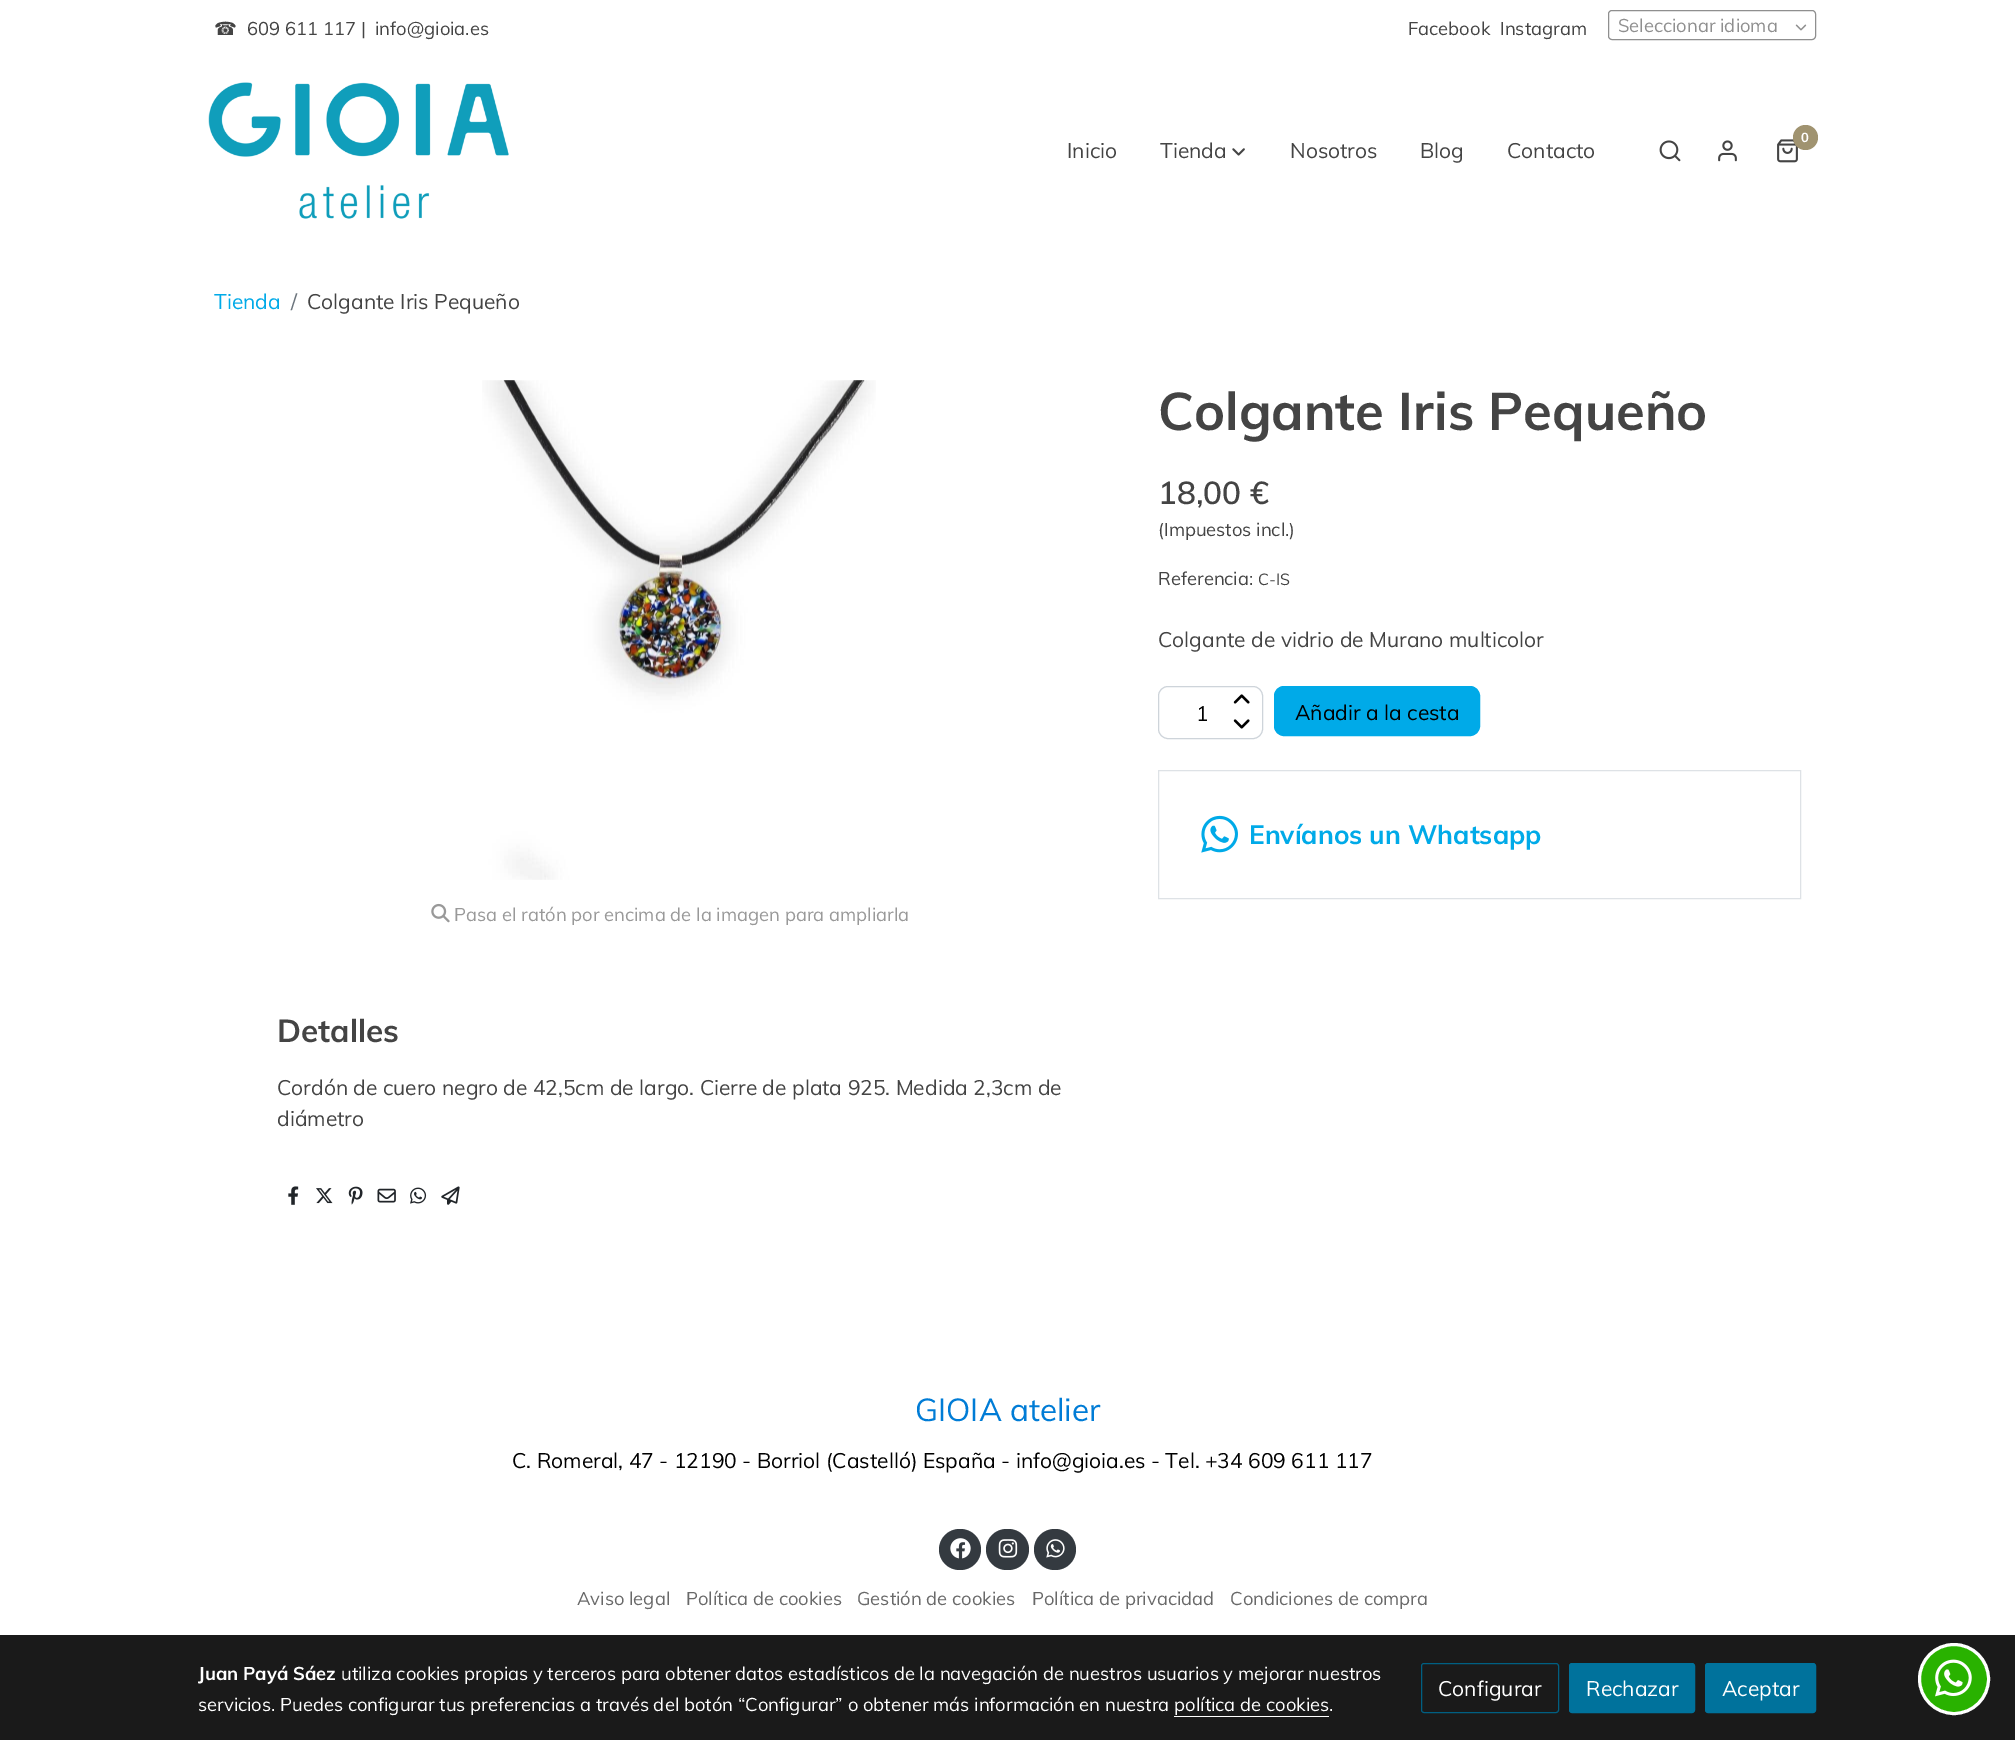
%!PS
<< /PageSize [2015 1740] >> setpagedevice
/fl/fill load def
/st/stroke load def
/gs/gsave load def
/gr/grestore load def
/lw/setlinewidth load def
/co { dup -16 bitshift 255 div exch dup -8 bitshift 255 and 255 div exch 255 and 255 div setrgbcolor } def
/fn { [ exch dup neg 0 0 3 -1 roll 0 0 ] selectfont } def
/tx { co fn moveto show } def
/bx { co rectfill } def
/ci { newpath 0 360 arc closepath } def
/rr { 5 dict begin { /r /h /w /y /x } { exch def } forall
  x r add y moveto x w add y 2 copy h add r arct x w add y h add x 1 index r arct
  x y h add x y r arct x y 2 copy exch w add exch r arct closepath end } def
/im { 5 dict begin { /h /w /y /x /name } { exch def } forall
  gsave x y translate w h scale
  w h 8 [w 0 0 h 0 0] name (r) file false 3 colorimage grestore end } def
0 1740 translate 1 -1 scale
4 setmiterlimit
0 0 2015 1740 16#FFFFFF bx
16#8F8F8F co
1608.5 10.5 207 29 3.5 rr st
(media/1.raw) 1795 24 12 7 im
(media/2.raw) 208 82 301 137 im
(media/3.raw) 1777 139 21 24 im
16#A09370 co
1805.5 137.5 12.5 ci fl
(media/4.raw) 1659 140 22 22 im
(media/5.raw) 1718 140 19 22 im
(media/6.raw) 1232 148 13 8 im
16#CED4DA co
1158.5 686.5 104 52 9.5 rr st
(media/7.raw) 1233 694 17 10 im
(media/8.raw) 1233 719 17 10 im
16#00AAE8 co
1274.5 686.5 205 49 9.5 rr gs fl gr
st
16#DEE2E6 co
1158.5 770.5 642 128 rectstroke
(media/9.raw) 1201 815 37 38 im
(media/10.raw) 482 380 394 500 im
(media/11.raw) 431 903 19 20 im
(media/12.raw) 288 1186 11 19 im
(media/13.raw) 316 1188 17 16 im
(media/14.raw) 348 1186 15 19 im
(media/15.raw) 377 1188 19 15 im
(media/16.raw) 410 1187 17 17 im
(media/17.raw) 441 1186 19 19 im
16#343A40 co
939 1529 42 41 20.5 rr fl
(media/18.raw) 950 1538 21 21 im
986 1529 43 41 20.5 rr fl
(media/19.raw) 998 1539 20 19 im
1034 1529 42 41 20.5 rr fl
(media/20.raw) 1046 1539 19 19 im
0 1635 2015 105 16#1A1A1A bx
1174 1716 155 1 16#FFFFFF bx
16#005F82 co
1421.5 1663.5 137 49 2.5 rr st
16#00729C co
1569.5 1663.5 125 49 2.5 rr gs fl gr
st
1705.5 1663.5 110 49 2.5 rr gs fl gr
st
16#29B200 co
1954 1679 34.5 ci gs fl gr
16#FFFFFF co
3 lw
st
(media/21.raw) 1935 1659 37 38 im
(☎) 214 35 /DejaVuSans-Regular 18.38 16#444444 tx
(609 611 117 |  info@gioia.es) 247 35 /Muli-Regular 18.38 16#444444 tx
(Facebook) 1408 35 /Muli-Regular 18.38 16#444444 tx
(Instagram) 1500 35 /Muli-Regular 18.38 16#444444 tx
(Seleccionar idioma) 1618 32 /Muli-Regular 18.38 16#8F8F8F tx
(0) 1801 142 /Muli-Bold 13 16#FFFFFF tx
(Inicio) 1067 158 /Muli-Regular 21 16#444444 tx
(Tienda) 1160 158 /Muli-Regular 21 16#444444 tx
(Nosotros) 1290 158 /Muli-Regular 21 16#444444 tx
(Blog) 1420 158 /Muli-Regular 21 16#444444 tx
(Contacto) 1507 158 /Muli-Regular 21 16#444444 tx
(Tienda) 214 309 /Muli-Regular 21 16#00AAE8 tx
(/) 291 309 /Muli-Regular 21 16#6C757D tx
(Colgante Iris Pequeño) 307 309 /Muli-Regular 21 16#444444 tx
(Colgante Iris Pequeño) 1158 430 /Muli-Bold 52.5 16#444444 tx
(18,00 €) 1158 504 /Muli-SemiBold 31.5 16#444444 tx
(\(Impuestos incl.\)) 1158 536 /Muli-Regular 18.38 16#444444 tx
(Referencia:) 1158 585 /Muli-Regular 18.38 16#444444 tx
(C-IS) 1258 585 /Muli-Regular 16 16#444444 tx
(Colgante de vidrio de Murano multicolor) 1158 647 /Muli-Regular 21 16#444444 tx
(1) 1196 721 /Muli-Regular 21 16#000000 tx
(Añadir a la cesta) 1295 720 /Muli-Regular 21 16#000000 tx
(Envíanos un Whatsapp) 1249 844 /Muli-Bold 26.25 16#00AAE8 tx
(Pasa el ratón por encima de la imagen para ampliarla) 454 921 /Muli-Regular 18.38 16#999999 tx
(Detalles) 277 1042 /Muli-Bold 31.5 16#444444 tx
(Cordón de cuero negro de 42,5cm de largo. Cierre de plata 925. Medida 2,3cm de) 277 1095 /Muli-Regular 21 16#444444 tx
(diámetro) 277 1126 /Muli-Regular 21 16#444444 tx
(GIOIA atelier) 915 1421 /Muli-Regular 31.5 16#007CD6 tx
(C. Romeral, 47 - 12190 - Borriol \(Castelló\) España - info@gioia.es - Tel. +34 609 611 117) 512 1468 /Muli-Regular 21 16#000000 tx
(Aviso legal) 577 1605 /Muli-Regular 18.38 16#696969 tx
(Política de cookies) 686 1605 /Muli-Regular 18.38 16#696969 tx
(Gestión de cookies) 857 1605 /Muli-Regular 18.38 16#696969 tx
(Política de privacidad) 1032 1605 /Muli-Regular 18.38 16#696969 tx
(Condiciones de compra) 1230 1605 /Muli-Regular 18.38 16#696969 tx
(Juan Payá Sáez) 198 1680 /Muli-Bold 18.38 16#FFFFFF tx
(utiliza cookies propias y terceros para obtener datos estadísticos de la navegación de nuestros usuarios y mejorar nuestros) 341 1680 /Muli-Regular 18.38 16#FFFFFF tx
(servicios. Puedes configurar tus preferencias a través del botón “Configurar” o obtener más información en nuestra política de cookies.) 198 1711 /Muli-Regular 18.38 16#FFFFFF tx
(Configurar) 1438 1696 /Muli-Regular 21 16#FFFFFF tx
(Rechazar) 1586 1696 /Muli-Regular 21 16#FFFFFF tx
(Aceptar) 1722 1696 /Muli-Regular 21 16#FFFFFF tx
showpage
